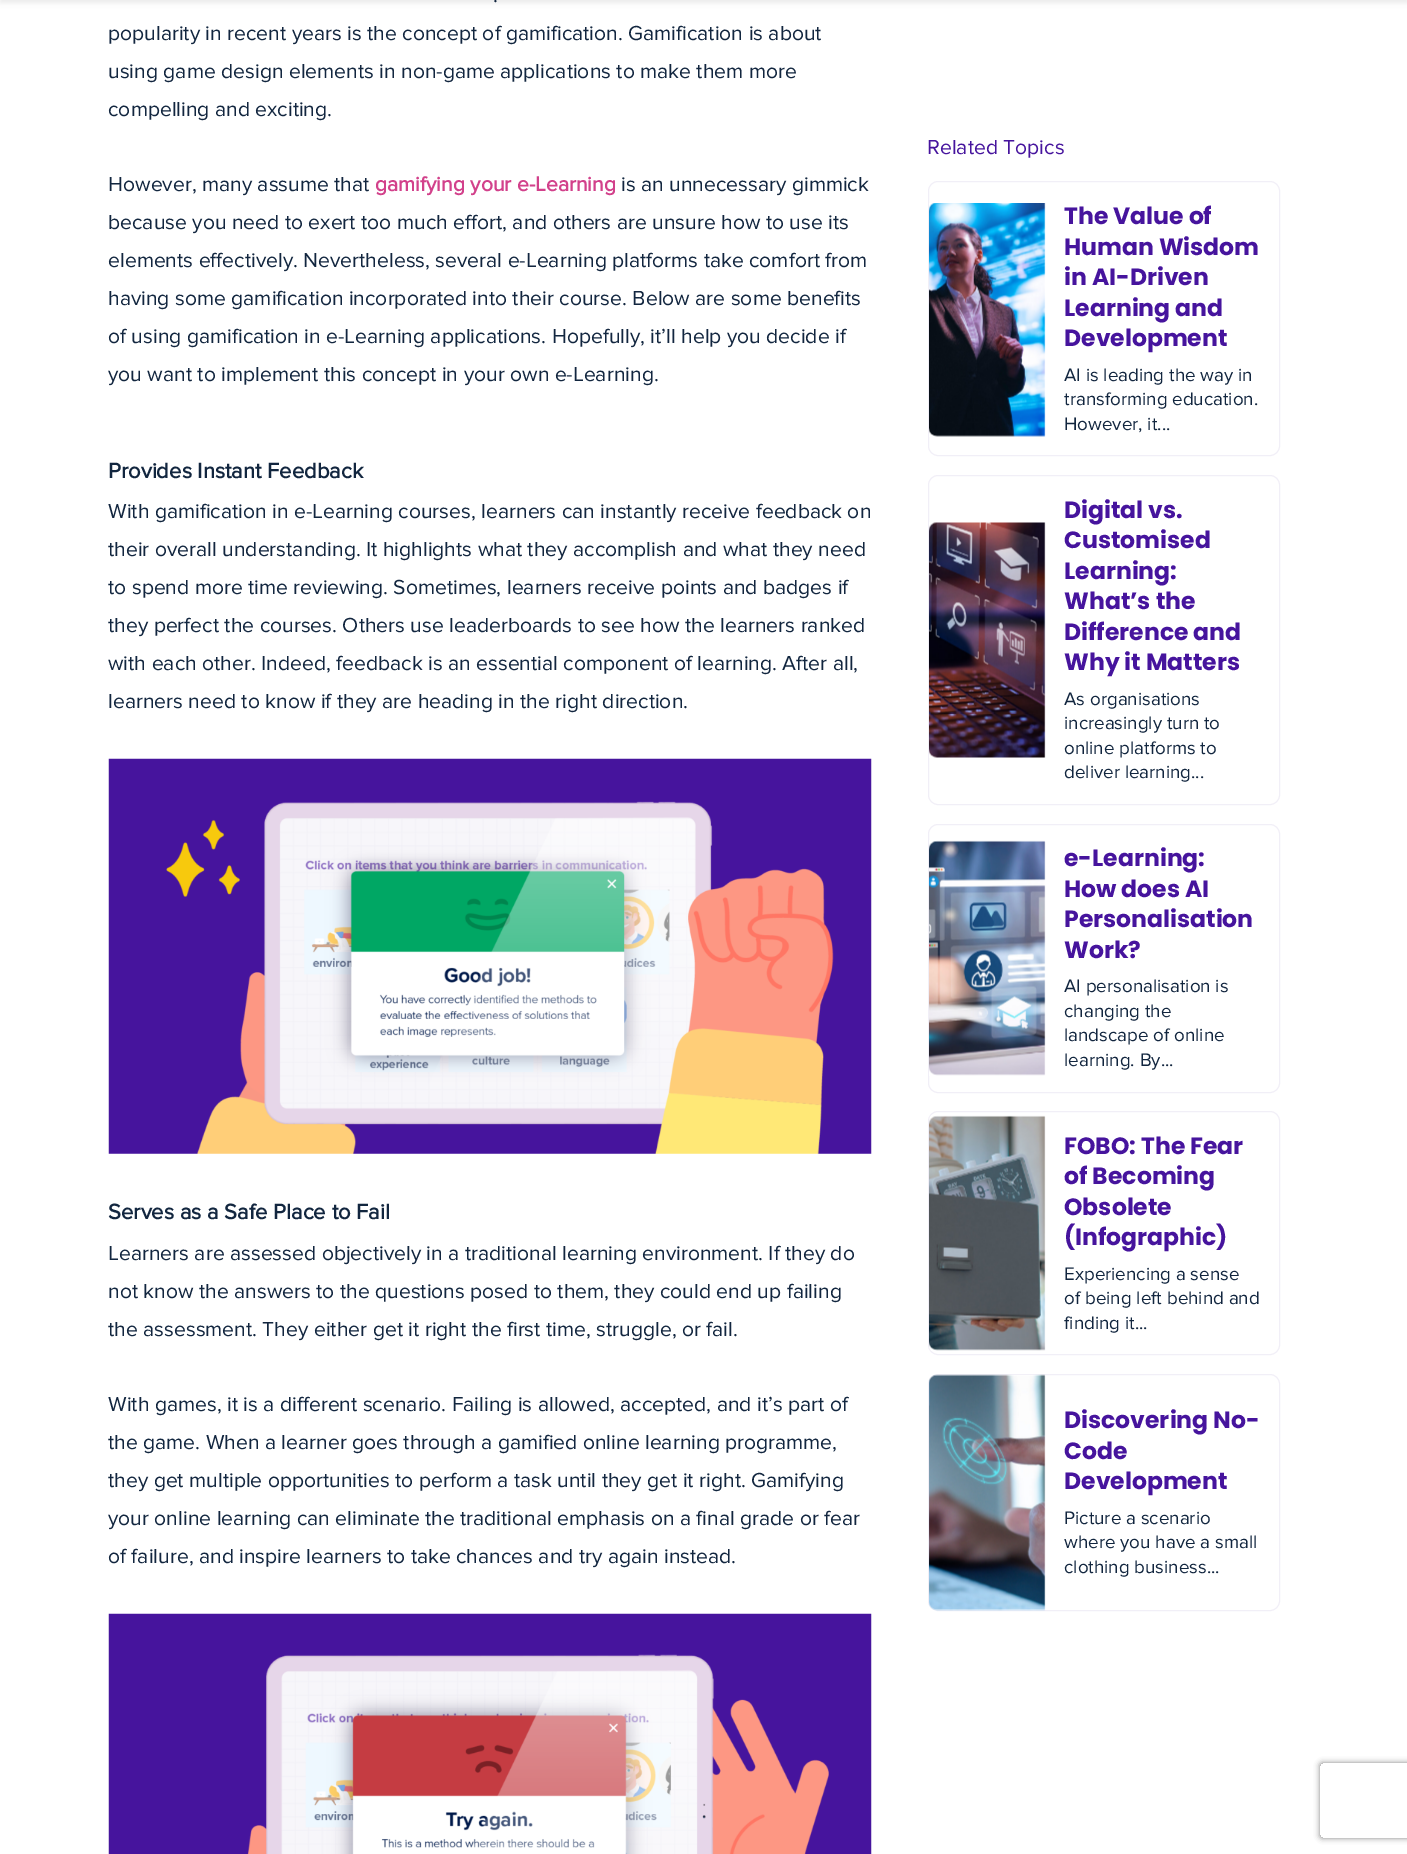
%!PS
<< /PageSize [1407 1854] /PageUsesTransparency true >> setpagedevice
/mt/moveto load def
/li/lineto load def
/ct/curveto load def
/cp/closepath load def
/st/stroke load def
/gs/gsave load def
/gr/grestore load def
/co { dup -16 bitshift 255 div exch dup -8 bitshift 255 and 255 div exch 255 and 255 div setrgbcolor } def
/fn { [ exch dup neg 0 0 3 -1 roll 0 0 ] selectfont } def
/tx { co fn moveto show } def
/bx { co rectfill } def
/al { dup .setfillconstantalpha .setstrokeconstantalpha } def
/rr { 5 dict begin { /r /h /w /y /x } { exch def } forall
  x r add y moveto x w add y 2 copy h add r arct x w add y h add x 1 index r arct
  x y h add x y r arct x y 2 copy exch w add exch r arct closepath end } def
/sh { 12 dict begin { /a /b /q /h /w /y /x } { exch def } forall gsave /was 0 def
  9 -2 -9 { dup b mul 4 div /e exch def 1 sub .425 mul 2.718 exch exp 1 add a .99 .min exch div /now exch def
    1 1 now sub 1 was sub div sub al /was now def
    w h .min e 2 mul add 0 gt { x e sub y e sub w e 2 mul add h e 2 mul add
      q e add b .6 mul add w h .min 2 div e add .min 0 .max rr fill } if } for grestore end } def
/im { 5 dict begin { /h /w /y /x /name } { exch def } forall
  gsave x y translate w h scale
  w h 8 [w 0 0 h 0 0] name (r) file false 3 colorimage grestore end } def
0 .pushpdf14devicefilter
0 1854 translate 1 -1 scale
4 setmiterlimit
0 0 1407 1854 16#FFFFFF bx
16#000000 co
0 -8 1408 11 0 2.5 .07 sh
(media/1.raw) 108 758 764 396 im
(media/2.raw) 108 1613 764 241 im
16#F1EFF7 co
928.5 181.5 351 274 9.5 rr st
(media/3.raw) 929 203 117 234 im
928.5 475.5 351 329 9.5 rr st
(media/4.raw) 929 522 117 236 im
928.5 824.5 351 268 9.5 rr st
(media/5.raw) 929 840 117 236 im
928.5 1111.5 351 243 9.5 rr st
(media/6.raw) 929 1115 117 236 im
928.5 1374.5 351 236 9.5 rr st
(media/7.raw) 929 1374 117 237 im
gs
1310 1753 mt 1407 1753 li 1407 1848 li 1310 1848 li cp 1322.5 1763 mt 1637.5 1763 li 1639 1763 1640 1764 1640 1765.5 ct 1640 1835.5 li 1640 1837 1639 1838 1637.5 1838 ct 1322.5 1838 li 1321 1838 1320 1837 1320 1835.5 ct 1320 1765.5 li 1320 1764 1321 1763 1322.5 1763 ct cp eoclip newpath
16#808080 co
1320 1763 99 75 2.5 3 1 sh
gr
(.) 493 2 /ProximaNova-Regular 21.1 16#12263F tx
(popularity in recent years is the concept of gamification. Gamification is about) 108 40 /ProximaNova-Regular 21.1 16#12263F tx
(using game design elements in non-game applications to make them more) 108 78 /ProximaNova-Regular 21.1 16#12263F tx
(compelling and exciting.) 108 116 /ProximaNova-Regular 21.1 16#12263F tx
(However, many assume that) 108 191 /ProximaNova-Regular 21.1 16#12263F tx
(gamifying your e-Learning) 375 191 /ProximaNova-Bold 21.1 16#D2418B tx
(is an unnecessary gimmick) 621 191 /ProximaNova-Regular 21.1 16#12263F tx
(because you need to exert too much effort, and others are unsure how to use its) 108 229 /ProximaNova-Regular 21.1 16#12263F tx
(elements effectively. Nevertheless, several e-Learning platforms take comfort from) 108 267 /ProximaNova-Regular 21.1 16#12263F tx
(having some gamification incorporated into their course. Below are some benefits) 108 305 /ProximaNova-Regular 21.1 16#12263F tx
(of using gamification in e-Learning applications. Hopefully, it’ll help you decide if) 108 343 /ProximaNova-Regular 21.1 16#12263F tx
(you want to implement this concept in your own e-Learning.) 108 381 /ProximaNova-Regular 21.1 16#12263F tx
(Provides Instant Feedback) 108 478 /ProximaNova-Bold 22 16#12263F tx
(With gamification in e-Learning courses, learners can instantly receive feedback on) 108 518 /ProximaNova-Regular 21.1 16#12263F tx
(their overall understanding. It highlights what they accomplish and what they need) 108 556 /ProximaNova-Regular 21.1 16#12263F tx
(to spend more time reviewing. Sometimes, learners receive points and badges if) 108 594 /ProximaNova-Regular 21.1 16#12263F tx
(they perfect the courses. Others use leaderboards to see how the learners ranked) 108 632 /ProximaNova-Regular 21.1 16#12263F tx
(with each other. Indeed, feedback is an essential component of learning. After all,) 108 670 /ProximaNova-Regular 21.1 16#12263F tx
(learners need to know if they are heading in the right direction.) 108 708 /ProximaNova-Regular 21.1 16#12263F tx
(Serves as a Safe Place to Fail) 108 1219 /ProximaNova-Bold 22 16#12263F tx
(Learners are assessed objectively in a traditional learning environment. If they do) 108 1260 /ProximaNova-Regular 21.1 16#12263F tx
(not know the answers to the questions posed to them, they could end up failing) 108 1298 /ProximaNova-Regular 21.1 16#12263F tx
(the assessment. They either get it right the first time, struggle, or fail.) 108 1336 /ProximaNova-Regular 21.1 16#12263F tx
(With games, it is a different scenario. Failing is allowed, accepted, and it’s part of) 108 1411 /ProximaNova-Regular 21.1 16#12263F tx
(the game. When a learner goes through a gamified online learning programme,) 108 1449 /ProximaNova-Regular 21.1 16#12263F tx
(they get multiple opportunities to perform a task until they get it right. Gamifying) 108 1487 /ProximaNova-Regular 21.1 16#12263F tx
(your online learning can eliminate the traditional emphasis on a final grade or fear) 108 1525 /ProximaNova-Regular 21.1 16#12263F tx
(of failure, and inspire learners to take chances and try again instead.) 108 1563 /ProximaNova-Regular 21.1 16#12263F tx
(Related Topics) 927 154 /ProximaNova-Regular 21.1 16#46149D tx
(The Value of) 1064 224 /Poppins-Bold 23.5 16#46149D tx
(Human Wisdom) 1064 255 /Poppins-Bold 23.5 16#46149D tx
(in AI-Driven) 1064 285 /Poppins-Bold 23.5 16#46149D tx
(Learning and) 1064 316 /Poppins-Bold 23.5 16#46149D tx
(Development) 1064 346 /Poppins-Bold 23.5 16#46149D tx
(AI is leading the way in) 1064 381 /ProximaNova-Regular 18.75 16#12263F tx
(transforming education.) 1064 405 /ProximaNova-Regular 18.75 16#12263F tx
(However, it...) 1064 430 /ProximaNova-Regular 18.75 16#12263F tx
(Digital vs.) 1064 518 /Poppins-Bold 23.5 16#46149D tx
(Customised) 1064 548 /Poppins-Bold 23.5 16#46149D tx
(Learning:) 1064 579 /Poppins-Bold 23.5 16#46149D tx
(What’s the) 1064 609 /Poppins-Bold 23.5 16#46149D tx
(Difference and) 1064 640 /Poppins-Bold 23.5 16#46149D tx
(Why it Matters) 1064 670 /Poppins-Bold 23.5 16#46149D tx
(As organisations) 1064 705 /ProximaNova-Regular 18.75 16#12263F tx
(increasingly turn to) 1064 729 /ProximaNova-Regular 18.75 16#12263F tx
(online platforms to) 1064 754 /ProximaNova-Regular 18.75 16#12263F tx
(deliver learning...) 1064 778 /ProximaNova-Regular 18.75 16#12263F tx
(e-Learning:) 1064 866 /Poppins-Bold 23.5 16#46149D tx
(How does AI) 1064 897 /Poppins-Bold 23.5 16#46149D tx
(Personalisation) 1064 927 /Poppins-Bold 23.5 16#46149D tx
(Work?) 1064 958 /Poppins-Bold 23.5 16#46149D tx
(AI personalisation is) 1064 992 /ProximaNova-Regular 18.75 16#12263F tx
(changing the) 1064 1017 /ProximaNova-Regular 18.75 16#12263F tx
(landscape of online) 1064 1041 /ProximaNova-Regular 18.75 16#12263F tx
(learning. By...) 1064 1066 /ProximaNova-Regular 18.75 16#12263F tx
(FOBO: The Fear) 1064 1154 /Poppins-Bold 23.5 16#46149D tx
(of Becoming) 1064 1184 /Poppins-Bold 23.5 16#46149D tx
(Obsolete) 1064 1215 /Poppins-Bold 23.5 16#46149D tx
(\(Infographic\)) 1064 1245 /Poppins-Bold 23.5 16#46149D tx
(Experiencing a sense) 1064 1280 /ProximaNova-Regular 18.75 16#12263F tx
(of being left behind and) 1064 1304 /ProximaNova-Regular 18.75 16#12263F tx
(finding it...) 1064 1329 /ProximaNova-Regular 18.75 16#12263F tx
(Discovering No-) 1064 1428 /Poppins-Bold 23.5 16#46149D tx
(Code) 1064 1459 /Poppins-Bold 23.5 16#46149D tx
(Development) 1064 1489 /Poppins-Bold 23.5 16#46149D tx
(Picture a scenario) 1064 1524 /ProximaNova-Regular 18.75 16#12263F tx
(where you have a small) 1064 1548 /ProximaNova-Regular 18.75 16#12263F tx
(clothing business...) 1064 1573 /ProximaNova-Regular 18.75 16#12263F tx
.poppdf14devicefilter showpage
